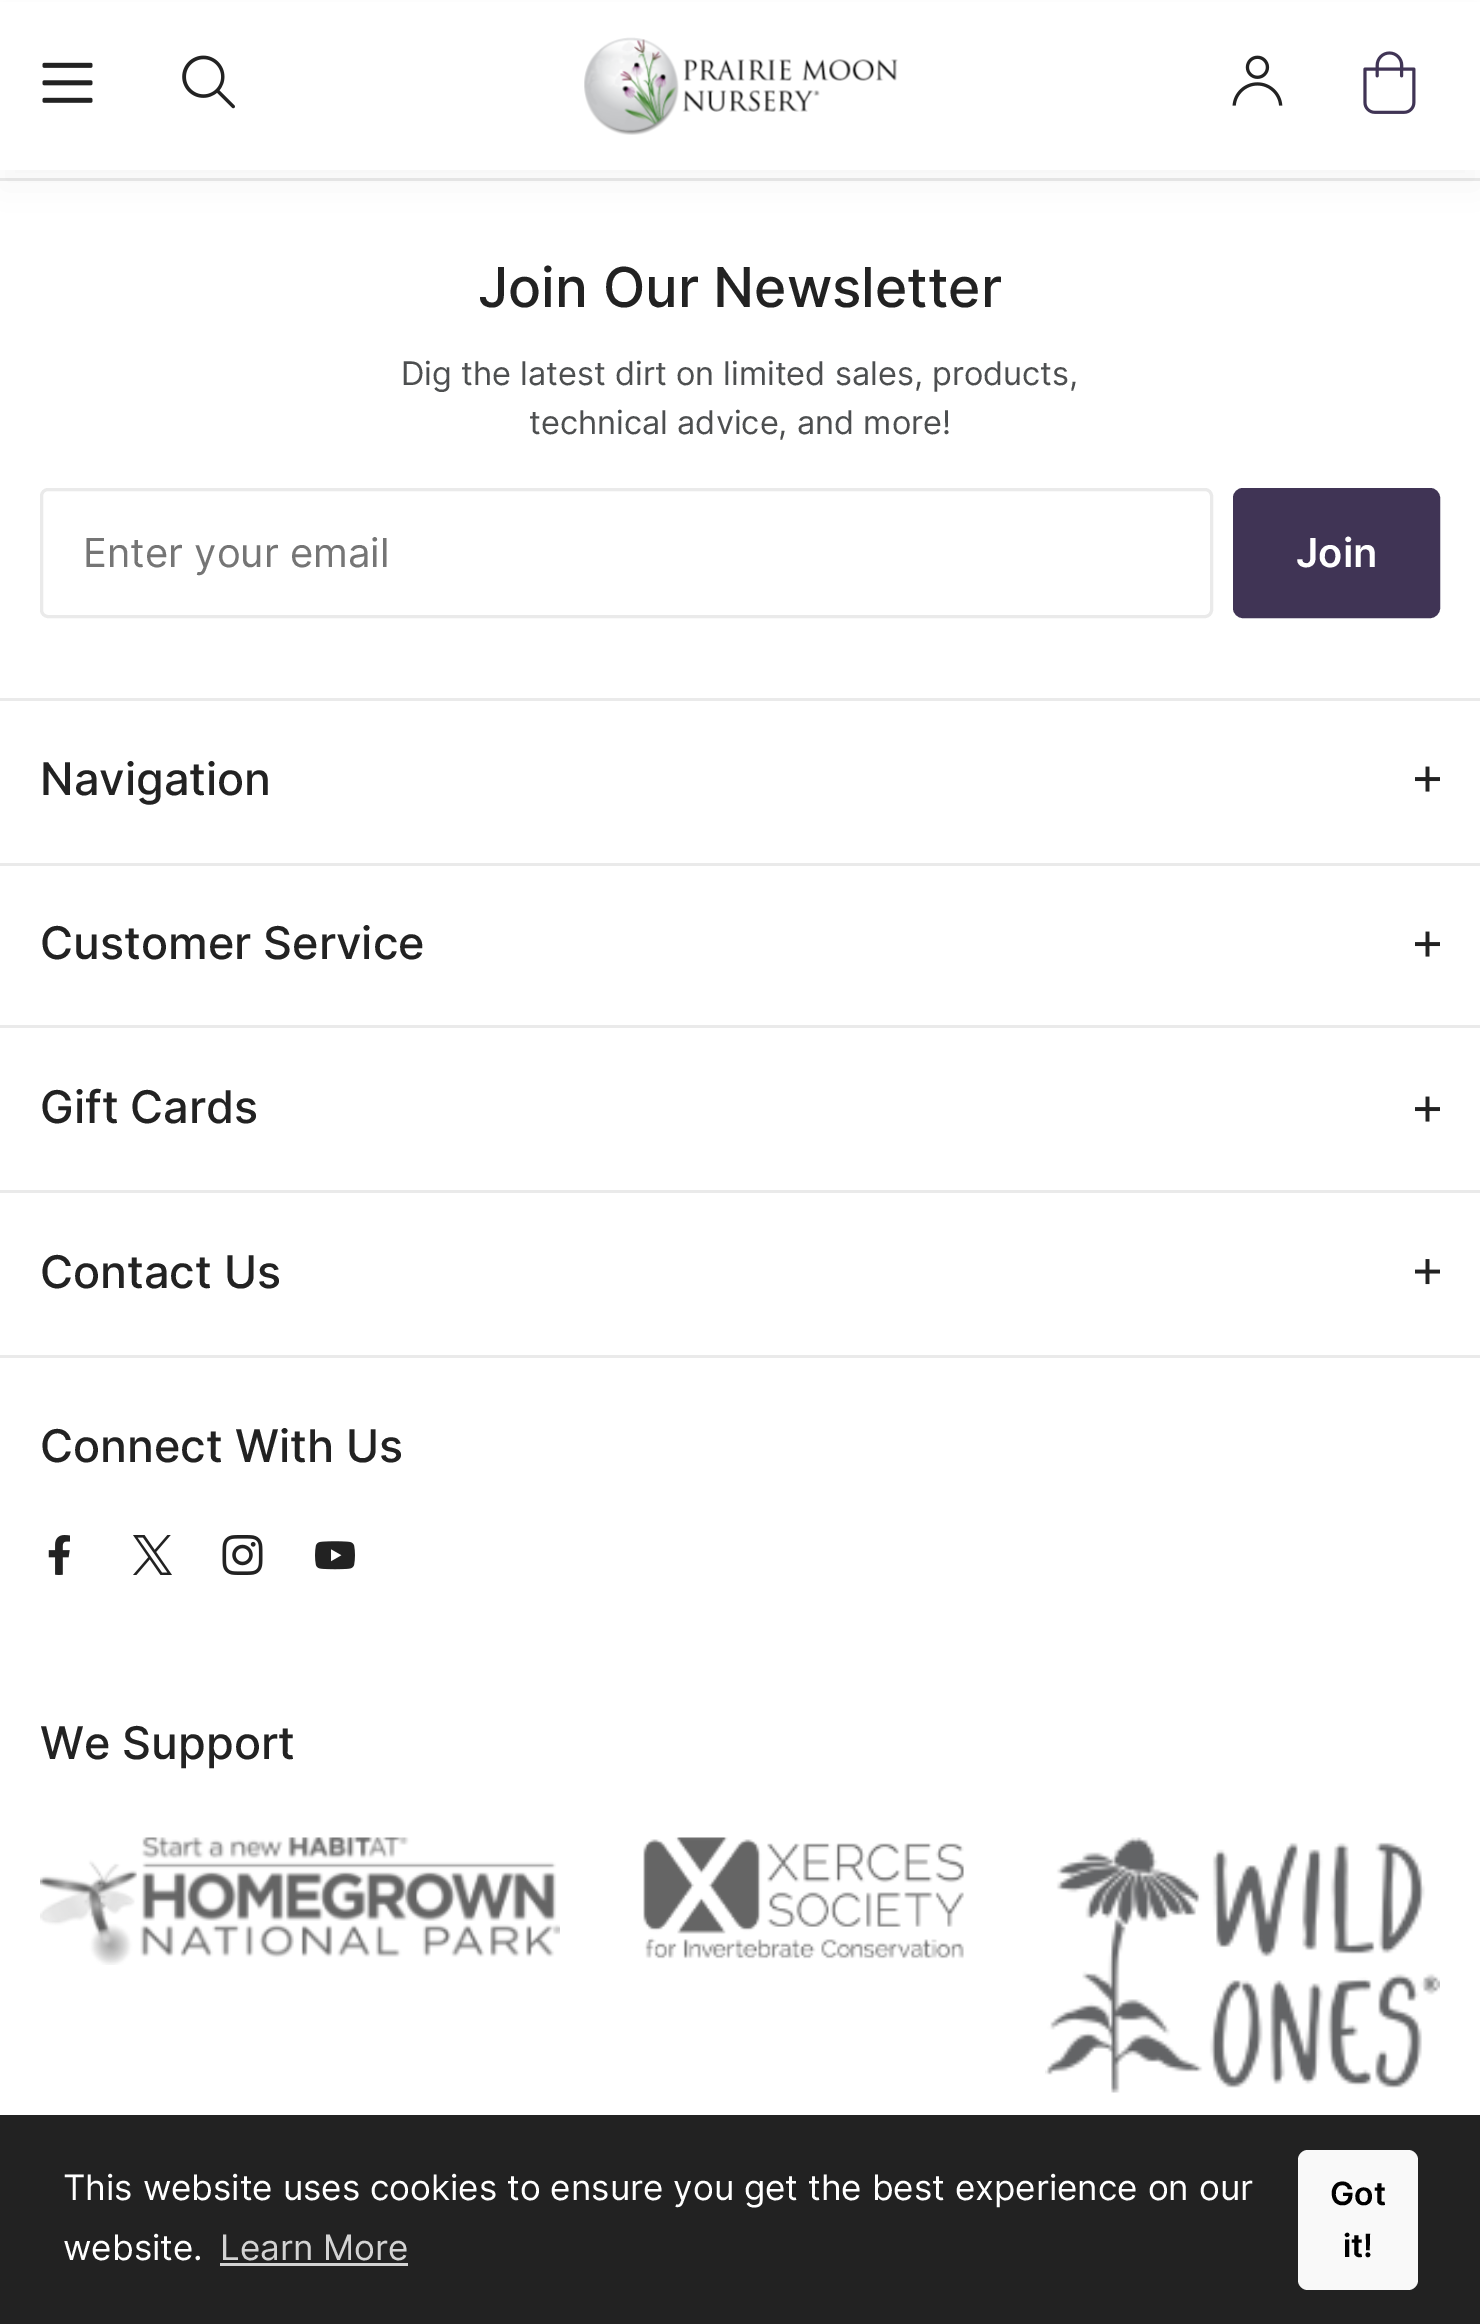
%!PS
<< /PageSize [1480 2324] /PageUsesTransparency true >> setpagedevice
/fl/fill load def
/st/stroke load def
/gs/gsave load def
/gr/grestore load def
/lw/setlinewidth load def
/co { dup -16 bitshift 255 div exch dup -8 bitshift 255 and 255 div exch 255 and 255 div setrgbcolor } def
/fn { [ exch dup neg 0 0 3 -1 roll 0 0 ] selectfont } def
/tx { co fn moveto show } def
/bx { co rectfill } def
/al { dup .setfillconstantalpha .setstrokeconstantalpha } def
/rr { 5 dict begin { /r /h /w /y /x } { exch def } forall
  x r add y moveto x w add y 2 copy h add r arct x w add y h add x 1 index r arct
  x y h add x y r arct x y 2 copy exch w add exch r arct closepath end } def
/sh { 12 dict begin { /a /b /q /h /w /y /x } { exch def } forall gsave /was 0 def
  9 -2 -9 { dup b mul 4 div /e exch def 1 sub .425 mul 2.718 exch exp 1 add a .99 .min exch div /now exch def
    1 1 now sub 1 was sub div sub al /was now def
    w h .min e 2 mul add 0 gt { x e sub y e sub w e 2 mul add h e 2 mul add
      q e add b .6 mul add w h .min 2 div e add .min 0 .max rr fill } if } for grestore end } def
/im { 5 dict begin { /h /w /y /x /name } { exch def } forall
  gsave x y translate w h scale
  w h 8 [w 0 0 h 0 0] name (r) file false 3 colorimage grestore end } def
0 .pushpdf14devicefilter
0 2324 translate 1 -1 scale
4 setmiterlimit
0 0 1480 2324 16#FFFFFF bx
0 178 1480 3 16#EAEAEA bx
16#000000 co
0 15 1480 173 0 20 .04 sh
0 2 1480 168 16#FFFFFF bx
(media/1.raw) 42 62 51 41 im
(media/2.raw) 182 55 53 54 im
(media/3.raw) 584 37 314 98 im
(media/4.raw) 1232 55 51 51 im
(media/5.raw) 1363 51 53 63 im
0 698 1480 3 16#EAEAEA bx
3 lw
41.5 489.5 1170 127 6.5 rr st
16#403455 co
1234.5 489.5 204 127 8.5 rr gs fl gr
st
0 863 1480 3 16#EAEAEA bx
(media/6.raw) 1415 766 25 26 im
0 1025 1480 3 16#EAEAEA bx
(media/6.raw) 1415 931 25 26 im
0 1190 1480 3 16#EAEAEA bx
(media/6.raw) 1415 1096 25 26 im
0 1355 1480 3 16#EAEAEA bx
(media/7.raw) 1415 1259 25 26 im
(media/8.raw) 48 1535 22 40 im
(media/9.raw) 133 1535 39 40 im
(media/10.raw) 222 1535 41 40 im
(media/11.raw) 315 1541 40 29 im
(media/12.raw) 40 1837 520 128 im
(media/13.raw) 643 1837 321 122 im
(media/14.raw) 1045 1837 395 256 im
0 2115 1480 209 16#222222 bx
220 2263 188 3 16#D3D3D3 bx
16#F9F9F9 co
1298 2150 120 140 10 rr fl
(Join Our Newsletter) 478 307 /Inter-Medium 55 16#222222 tx
(Dig the latest dirt on limited sales, products,) 401 385 /Inter-Regular 32.5 16#4D4F50 tx
(technical advice, and more!) 529 434 /Inter-Regular 32.5 16#4D4F50 tx
(Enter your email) 83 567 /Inter-Regular 40 16#757575 tx
(Join) 1296 567 /Inter-SemiBold 40 16#FFFFFF tx
(Navigation) 40 795 /Inter-Medium 45 16#222222 tx
(Customer Service) 40 959 /Inter-Medium 45 16#222222 tx
(Gift Cards) 40 1123 /Inter-Medium 45 16#222222 tx
(Contact Us) 40 1288 /Inter-Medium 45 16#222222 tx
(Connect With Us) 40 1462 /Inter-Medium 45 16#222222 tx
(We Support) 40 1759 /Inter-Medium 45 16#222222 tx
(This website uses cookies to ensure you get the best experience on our) 63 2200 /Inter-Regular 35 16#FFFFFF tx
(website.) 63 2260 /Inter-Regular 35 16#FFFFFF tx
(Learn More) 220 2260 /Inter-Regular 35 16#D3D3D3 tx
(Got) 1330 2205 /Inter-SemiBold 32 16#000000 tx
(it!) 1343 2257 /Inter-SemiBold 32 16#000000 tx
.poppdf14devicefilter showpage
